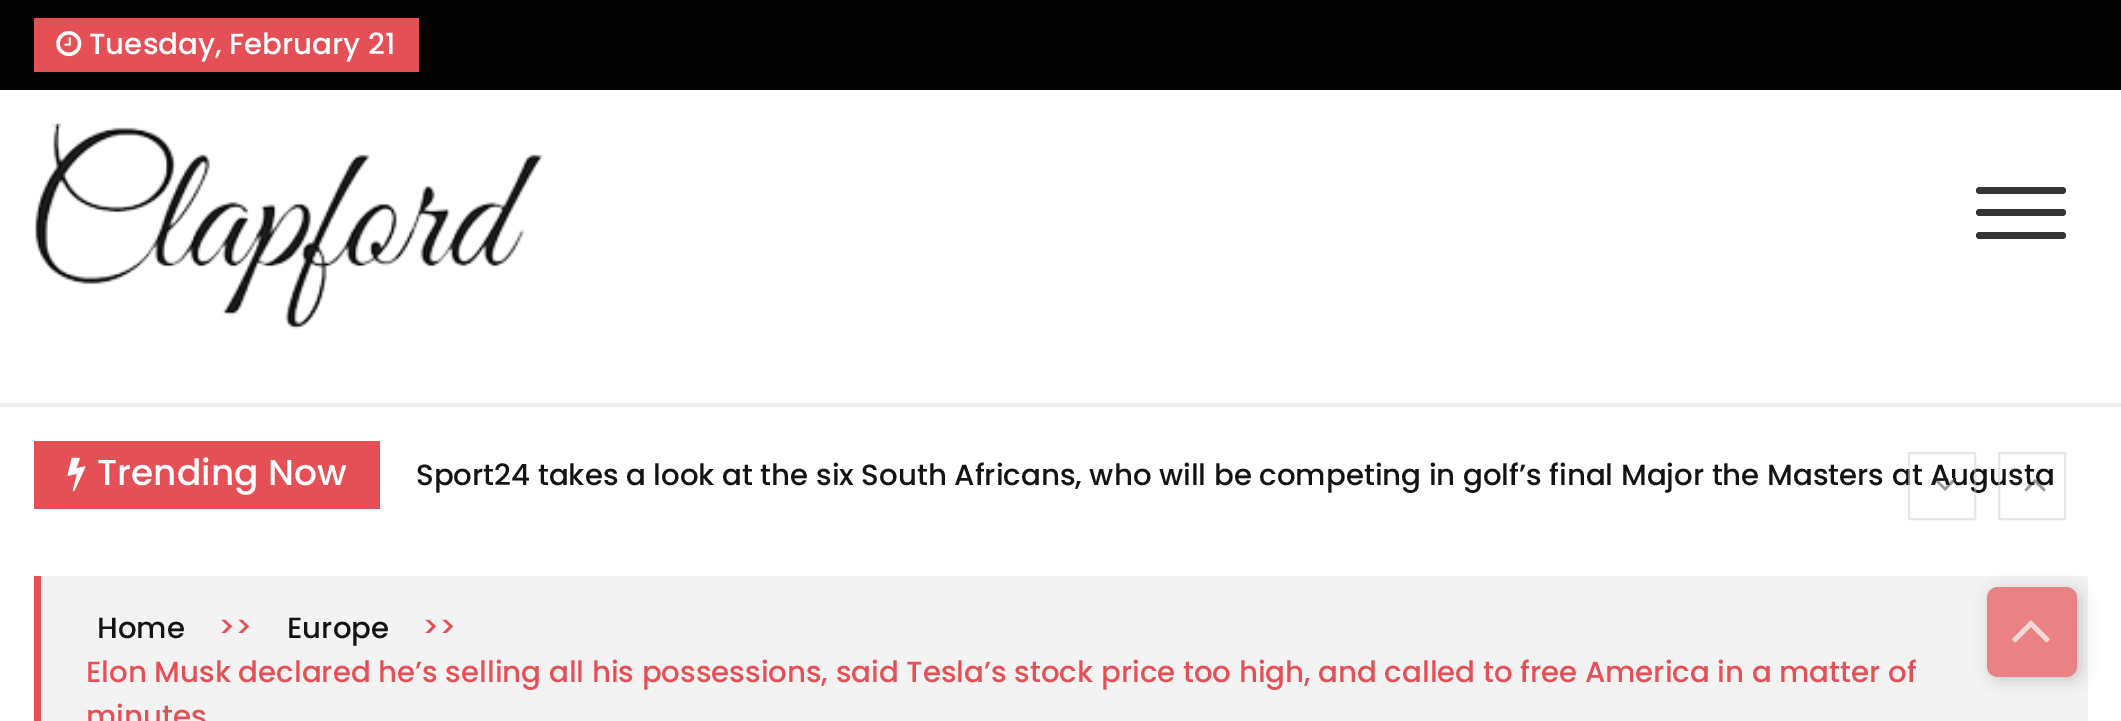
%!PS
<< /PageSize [2121 721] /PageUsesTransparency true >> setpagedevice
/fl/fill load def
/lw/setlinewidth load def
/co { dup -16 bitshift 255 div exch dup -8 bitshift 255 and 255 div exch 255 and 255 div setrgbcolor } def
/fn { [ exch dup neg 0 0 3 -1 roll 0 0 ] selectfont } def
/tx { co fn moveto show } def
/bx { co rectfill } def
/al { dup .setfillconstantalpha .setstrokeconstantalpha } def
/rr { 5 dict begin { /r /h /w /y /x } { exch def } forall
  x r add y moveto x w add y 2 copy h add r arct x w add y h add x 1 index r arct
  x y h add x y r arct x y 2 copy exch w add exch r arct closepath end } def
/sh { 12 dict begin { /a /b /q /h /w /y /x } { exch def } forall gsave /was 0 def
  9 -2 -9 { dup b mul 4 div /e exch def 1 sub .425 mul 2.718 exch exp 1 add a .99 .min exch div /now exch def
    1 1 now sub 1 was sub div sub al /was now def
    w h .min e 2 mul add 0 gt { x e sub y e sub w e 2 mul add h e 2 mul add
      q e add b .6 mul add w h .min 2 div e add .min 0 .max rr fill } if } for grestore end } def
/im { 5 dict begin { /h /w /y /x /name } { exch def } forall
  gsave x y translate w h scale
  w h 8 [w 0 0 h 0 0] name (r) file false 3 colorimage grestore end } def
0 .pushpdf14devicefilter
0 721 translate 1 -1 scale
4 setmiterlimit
0 0 2121 721 16#FFFFFF bx
0 0 2121 90 16#030303 bx
34 18 385 54 16#E55056 bx
(media/1.raw) 56 31 26 26 im
(media/2.raw) 33 123 510 206 im
16#353535 co
1976 209 90 7 3.5 rr fl
1976 187 90 7 3.5 rr fl
1976 232 90 7 3.5 rr fl
0 403 2121 4 16#EEEEEE bx
34 441 346 68 16#E55056 bx
(media/3.raw) 67 457 19 35 im
41 576 2047 145 16#F3F3F3 bx
34 576 7 145 16#E55056 bx
16#1D1A1A co
1991 590 90 90 11 8 .2 sh
16#E98185 co
1987 587 90 90 11 rr fl
(media/6.raw) 2012 620 38 23 im
(Tuesday, February 21) 89 54 /Poppins-Medium 29.25 16#FFFFFF tx
(Trending Now) 97 485 /Poppins-Medium 36 16#FFFFFF tx
(Sport24 takes a look at the six South Africans, who will be competing in golf’s final Major the Masters at Augusta) 416 485 /Poppins-Medium 29.25 16#131313 tx
0.5 al
16#CDCDCD co
2 lw
1999 453 66 66 rectstroke
1 al
(media/5.raw) 2024 479 22 13 im
0.5 al
1909 453 66 66 rectstroke
1 al
(media/4.raw) 1934 478 22 13 im
(Home) 97 638 /Poppins-Medium 29.25 16#131313 tx
(>>) 218 637 /Poppins-Medium 29.25 16#E55056 tx
(Europe) 287 638 /Poppins-Medium 29.25 16#131313 tx
(>>) 422 637 /Poppins-Medium 29.25 16#E55056 tx
(Elon Musk declared he’s selling all his possessions, said Tesla’s stock price too high, and called to free America in a matter of) 86 682 /Poppins-Medium 29.25 16#E55056 tx
(minutes) 86 726 /Poppins-Medium 29.25 16#E55056 tx
.poppdf14devicefilter showpage
